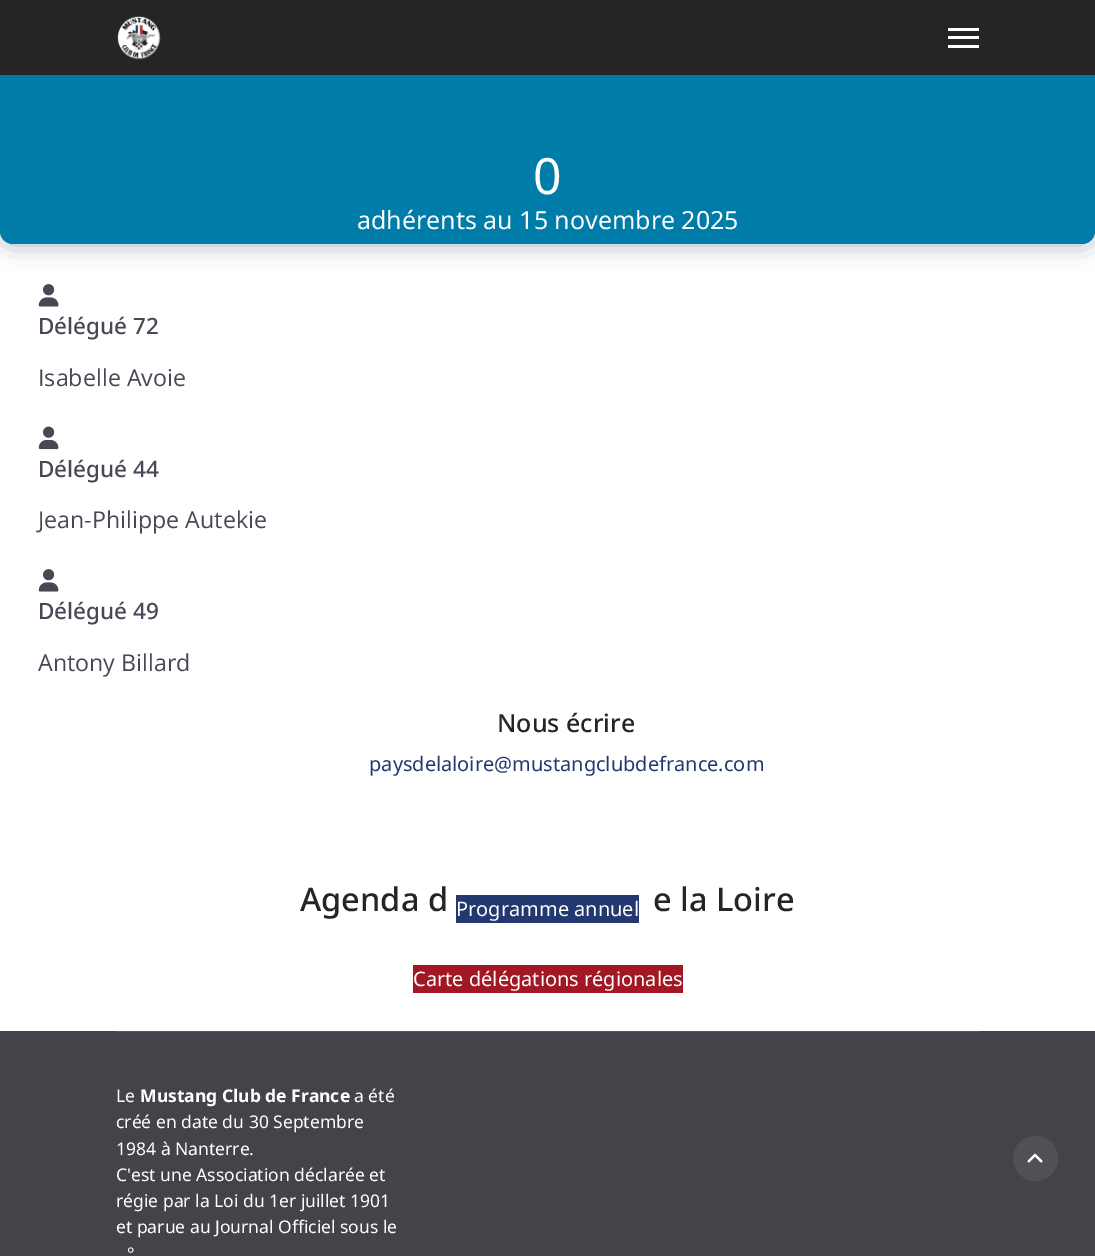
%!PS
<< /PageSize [1095 1256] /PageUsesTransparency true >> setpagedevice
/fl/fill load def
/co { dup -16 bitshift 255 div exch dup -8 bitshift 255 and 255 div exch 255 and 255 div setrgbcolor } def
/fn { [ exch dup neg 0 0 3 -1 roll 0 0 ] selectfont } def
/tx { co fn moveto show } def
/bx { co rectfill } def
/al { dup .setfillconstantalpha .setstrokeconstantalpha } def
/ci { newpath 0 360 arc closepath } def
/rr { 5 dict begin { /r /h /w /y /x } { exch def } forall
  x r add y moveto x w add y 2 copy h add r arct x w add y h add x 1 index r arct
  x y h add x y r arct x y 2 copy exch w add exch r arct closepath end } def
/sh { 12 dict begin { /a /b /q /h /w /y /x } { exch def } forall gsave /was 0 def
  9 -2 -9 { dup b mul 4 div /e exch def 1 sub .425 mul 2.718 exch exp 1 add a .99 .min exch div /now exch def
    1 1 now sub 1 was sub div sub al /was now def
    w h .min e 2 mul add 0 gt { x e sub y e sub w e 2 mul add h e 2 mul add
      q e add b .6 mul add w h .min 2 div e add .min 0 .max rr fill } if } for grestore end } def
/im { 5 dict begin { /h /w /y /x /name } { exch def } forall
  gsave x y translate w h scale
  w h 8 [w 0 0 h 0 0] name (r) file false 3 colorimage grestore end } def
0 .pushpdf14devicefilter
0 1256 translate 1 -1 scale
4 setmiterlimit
0 0 1095 1256 16#FFFFFF bx
16#243870 co
0 4 1095 240 13 12.5 .4 sh
16#007CA8 co
0 4 1095 240 13 rr fl
16#000000 co
0 0 1095 75 0 2.5 .1 sh
0 0 1095 75 16#252525 bx
(media/1.raw) 117 16 44 44 im
948 28 31 3 16#FFFFFF bx
948 36 31 3 16#FFFFFF bx
948 45 31 3 16#FFFFFF bx
(media/2.raw) 38 284 21 23 im
(media/3.raw) 38 426 21 24 im
(media/2.raw) 38 569 21 23 im
456 895 183 28 16#243870 bx
413 965 270 28 16#A21724 bx
0 1031 1095 225 16#444349 bx
116 1031 863 1 16#57565B bx
16#515054 co
1035.5 1158.5 22.5 ci fl
(media/4.raw) 1027 1153 16 10 im
(0) 533 194 /NotoSans-Regular 50 16#FFFFFF tx
(adhérents au 15 novembre 2025) 357 229 /NotoSans-Regular 25 16#FFFFFF tx
(Délégué 72) 38 334 /NotoSans-Medium 22.5 16#464855 tx
(Isabelle Avoie) 38 386 /OpenSans-Regular 23.25 16#464855 tx
(Délégué 44) 38 477 /NotoSans-Medium 22.5 16#464855 tx
(Jean-Philippe Autekie) 38 528 /OpenSans-Regular 23.25 16#464855 tx
(Délégué 49) 38 619 /NotoSans-Medium 22.5 16#464855 tx
(Antony Billard) 38 671 /OpenSans-Regular 23.25 16#464855 tx
(Nous écrire) 497 732 /NotoSans-Medium 25 16#252525 tx
(paysdelaloire@mustangclubdefrance.com) 369 771 /NotoSans-Regular 20 16#243870 tx
(Agenda d) 300 911 /NotoSans-Medium 32.5 16#252525 tx
(e la Loire) 653 911 /NotoSans-Medium 32.5 16#252525 tx
(Programme annuel) 456 916 /NotoSans-Regular 20 16#FFFFFF tx
(Carte délégations régionales) 413 986 /NotoSans-Regular 20 16#FFFFFF tx
(Le) 116 1102 /NotoSans-Regular 17.5 16#FFFFFF tx
(Mustang Club de France) 140 1102 /NotoSans-Bold 17.5 16#FFFFFF tx
(a été) 354 1102 /NotoSans-Regular 17.5 16#FFFFFF tx
(créé en date du 30 Septembre) 116 1128 /NotoSans-Regular 17.5 16#FFFFFF tx
(1984 à Nanterre.) 116 1155 /NotoSans-Regular 17.5 16#FFFFFF tx
(C'est une Association déclarée et) 116 1181 /NotoSans-Regular 17.5 16#FFFFFF tx
(régie par la Loi du 1er juillet 1901) 116 1207 /NotoSans-Regular 17.5 16#FFFFFF tx
(et parue au Journal Officiel sous le) 116 1233 /NotoSans-Regular 17.5 16#FFFFFF tx
(°) 127 1260 /NotoSans-Regular 17.5 16#FFFFFF tx
.poppdf14devicefilter showpage
